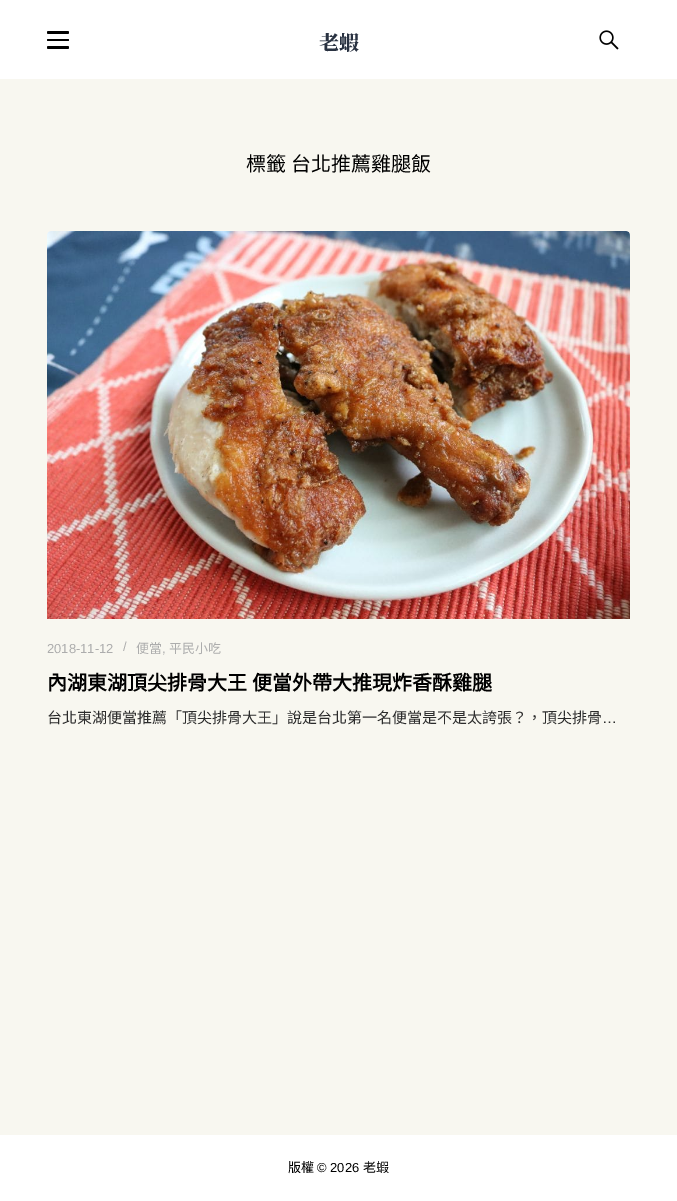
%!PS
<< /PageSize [677 1201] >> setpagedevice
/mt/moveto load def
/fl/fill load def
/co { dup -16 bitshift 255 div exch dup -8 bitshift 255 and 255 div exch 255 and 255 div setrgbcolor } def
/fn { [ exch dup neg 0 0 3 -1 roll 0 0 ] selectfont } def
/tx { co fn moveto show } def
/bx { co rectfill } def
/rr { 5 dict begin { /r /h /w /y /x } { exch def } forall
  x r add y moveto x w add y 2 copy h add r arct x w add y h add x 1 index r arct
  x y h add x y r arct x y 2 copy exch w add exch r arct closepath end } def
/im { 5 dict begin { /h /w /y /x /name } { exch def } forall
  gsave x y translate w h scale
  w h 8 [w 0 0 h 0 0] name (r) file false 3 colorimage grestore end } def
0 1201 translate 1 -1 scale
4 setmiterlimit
0 0 677 1201 16#F8F7F0 bx
0 0 677 79 16#FFFFFF bx
16#000000 co
47 31 22 3 1.5 rr fl
47 39 22 2 1 rr fl
47 46 22 3 1.5 rr fl
(media/1.raw) 599 30 20 20 im
(media/2.raw) 47 231 583 388 im
0 1135 677 66 16#FFFFFF bx
(老蝦) 319 50 /NotoSerifTC-Black 20 16#293241 tx
(標籤) 246 171 /NotoSansCJKTC-Regular 20 16#000000 tx
(台北推薦雞腿飯) 291 171 /NotoSansCJKTC-Regular 20 16#000000 tx
(2018-11-12) 47 653 /LiberationSans-Regular 13 16#ADADAD tx
(/) 123 651 /LiberationSans-Regular 13 16#ADADAD tx
(便當) 136 653 /NotoSansCJKTC-Regular 13 16#ADADAD tx
(,) 162 653 /LiberationSans-Regular 13 16#ADADAD tx
(平民小吃) 169 653 /NotoSansCJKTC-Regular 13 16#ADADAD tx
/NotoSansCJKTC-Bold 20 fn
16#000000 co
47 690 mt 1 0 32 (內湖東湖頂尖排骨大王 便當外帶大推現炸香酥雞腿) widthshow
(台北東湖便當推薦「頂尖排骨大王」說是台北第一名便當是不是太誇張？，頂尖排骨) 47 723 /NotoSansCJKTC-Regular 15 16#2C2C2C tx
(…) 602 723 /LiberationSans-Regular 15 16#2C2C2C tx
(版權) 288 1172 /NotoSansCJKTC-Regular 13 16#000000 tx
(© 2026) 317 1172 /LiberationSans-Regular 13 16#000000 tx
(老蝦) 363 1172 /NotoSansCJKTC-Regular 13 16#000000 tx
showpage
